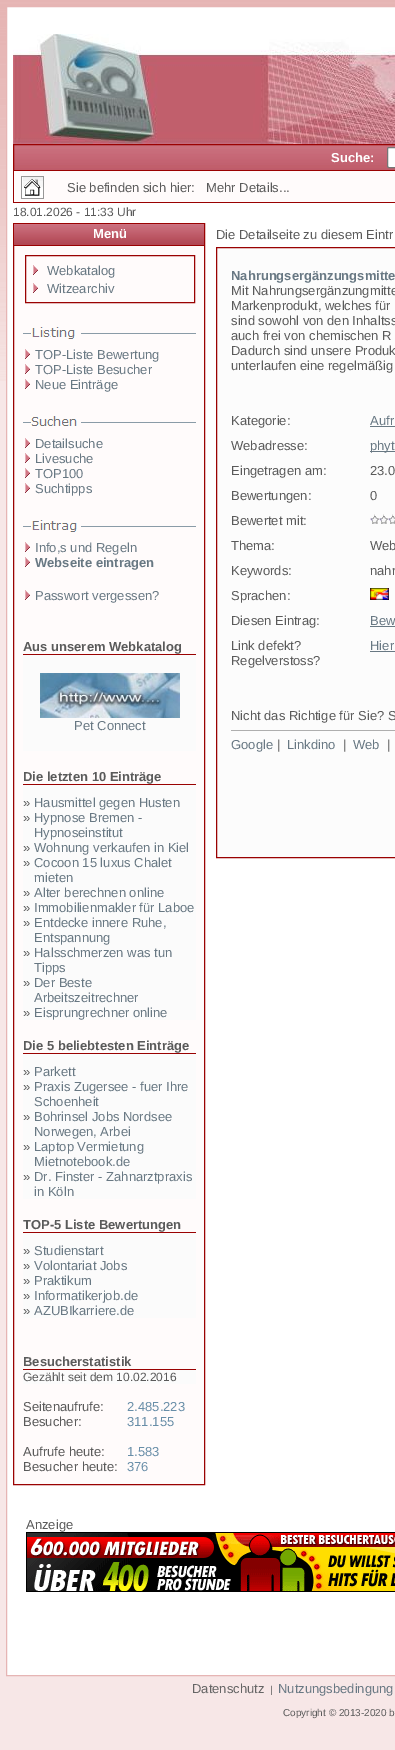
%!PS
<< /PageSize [395 1750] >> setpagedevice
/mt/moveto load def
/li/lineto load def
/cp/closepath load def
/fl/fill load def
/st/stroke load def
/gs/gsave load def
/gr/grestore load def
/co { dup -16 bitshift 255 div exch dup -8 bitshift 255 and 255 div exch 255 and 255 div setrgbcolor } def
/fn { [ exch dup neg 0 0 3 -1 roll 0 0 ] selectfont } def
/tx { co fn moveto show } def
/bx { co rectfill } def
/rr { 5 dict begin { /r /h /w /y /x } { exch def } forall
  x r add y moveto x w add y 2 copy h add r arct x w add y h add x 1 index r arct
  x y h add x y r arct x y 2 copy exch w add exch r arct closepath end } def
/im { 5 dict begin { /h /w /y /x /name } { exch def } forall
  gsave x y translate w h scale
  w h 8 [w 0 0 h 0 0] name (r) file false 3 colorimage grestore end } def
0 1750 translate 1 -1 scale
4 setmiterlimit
0 0 395 1750 16#F7E7E7 bx
(media/1.raw) 0 0 395 381 im
16#FFFFFF co
6.5 6.5 mt 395.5 6.5 li 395.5 1675.5 li 6.5 1675.5 li cp gs fl gr
16#E6B5B4 co
st
(media/2.raw) 13 34 382 110 im
(media/3.raw) 14 145 381 25 im
16#9A0202 co
13.5 144.5 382 26 rectstroke
16#FFFFFF co
387.5 147.5 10 20 1.5 rr gs fl gr
16#767676 co
st
14 171 381 31 16#FFFBFB bx
13 202 382 1 16#9A0202 bx
13 171 1 32 16#9A0202 bx
(media/4.raw) 21 176 23 23 im
14 246 190 1238 16#FFFBFB bx
16#9A0202 co
13.5 223.5 191 1261 rectstroke
(media/5.raw) 14 224 190 21 im
14 245 190 1 16#9A0202 bx
25.5 255.5 169 47 rectstroke
(media/6.raw) 33 265 5 10 im
(media/6.raw) 33 283 5 10 im
(media/7.raw) 23 327 173 12 im
(media/6.raw) 25 349 5 10 im
(media/6.raw) 25 364 5 10 im
(media/6.raw) 25 379 5 10 im
(media/8.raw) 23 416 173 10 im
(media/6.raw) 25 438 5 10 im
(media/6.raw) 25 453 5 10 im
(media/6.raw) 25 468 5 10 im
(media/6.raw) 25 483 5 10 im
(media/9.raw) 23 520 173 12 im
(media/6.raw) 25 542 5 10 im
(media/6.raw) 25 557 5 10 im
(media/6.raw) 25 590 5 10 im
23 655 173 96 16#FBFBFB bx
23 654 173 1 16#9A0202 bx
(media/10.raw) 40 673 140 45 im
23 785 173 235 16#FBFBFB bx
23 784 173 1 16#9A0202 bx
23 1054 173 145 16#FBFBFB bx
23 1053 173 1 16#9A0202 bx
23 1233 173 85 16#FBFBFB bx
23 1232 173 1 16#9A0202 bx
23 1370 173 14 16#FBFBFB bx
23 1369 173 1 16#9A0202 bx
16#FCFCFC co
216.5 247.5 mt 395.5 247.5 li 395.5 857.5 li 216.5 857.5 li cp gs fl gr
16#9A0202 co
st
370 426 25 1 16#687883 bx
370 451 25 1 16#687883 bx
(media/11.raw) 370 514 25 10 im
(media/12.raw) 370 588 19 12 im
370 626 25 1 16#687883 bx
370 651 25 1 16#687883 bx
231 730 164 1 16#AEAEAE bx
(media/13.raw) 26 1532 369 60 im
(Suche:) 331 162 /LiberationSans-Bold 13 16#FFFFFF tx
(Sie befinden sich hier:) 67 192 /LiberationSans-Regular 13 16#5A5A5A tx
(Mehr Details...) 206 192 /LiberationSans-Regular 13 16#5A5A5A tx
(18.01.2026 - 11:33 Uhr) 13 216 /LiberationSans-Regular 12 16#5A5A5A tx
(Menü) 93 238 /LiberationSans-Bold 13 16#FFFFFF tx
(Webkatalog) 47 275 /LiberationSans-Regular 13 16#687883 tx
(Witzearchiv) 47 293 /LiberationSans-Regular 13 16#687883 tx
(TOP-Liste Bewertung) 35 359 /LiberationSans-Regular 13 16#687883 tx
(TOP-Liste Besucher) 35 374 /LiberationSans-Regular 13 16#687883 tx
(Neue Einträge) 35 389 /LiberationSans-Regular 13 16#687883 tx
(Detailsuche) 35 448 /LiberationSans-Regular 13 16#687883 tx
(Livesuche) 35 463 /LiberationSans-Regular 13 16#687883 tx
(TOP100) 35 478 /LiberationSans-Regular 13 16#687883 tx
(Suchtipps) 35 493 /LiberationSans-Regular 13 16#687883 tx
(Info,s und Regeln) 35 552 /LiberationSans-Regular 13 16#687883 tx
(Webseite eintragen) 35 567 /LiberationSans-Bold 13 16#687883 tx
(Passwort vergessen?) 35 600 /LiberationSans-Regular 13 16#687883 tx
(Aus unserem Webkatalog) 23 651 /LiberationSans-Bold 13 16#5A5A5A tx
(Pet Connect) 74 730 /LiberationSans-Regular 13 16#687883 tx
(Die letzten 10 Einträge) 23 781 /LiberationSans-Bold 13 16#5A5A5A tx
(») 23 807 /LiberationSans-Regular 13 16#5A5A5A tx
(Hausmittel gegen Husten) 34 807 /LiberationSans-Regular 13 16#687883 tx
(») 23 822 /LiberationSans-Regular 13 16#5A5A5A tx
(Hypnose Bremen -) 34 822 /LiberationSans-Regular 13 16#687883 tx
(Hypnoseinstitut) 34 837 /LiberationSans-Regular 13 16#687883 tx
(») 23 852 /LiberationSans-Regular 13 16#5A5A5A tx
(Wohnung verkaufen in Kiel) 34 852 /LiberationSans-Regular 13 16#687883 tx
(») 23 867 /LiberationSans-Regular 13 16#5A5A5A tx
(Cocoon 15 luxus Chalet) 34 867 /LiberationSans-Regular 13 16#687883 tx
(mieten) 34 882 /LiberationSans-Regular 13 16#687883 tx
(») 23 897 /LiberationSans-Regular 13 16#5A5A5A tx
(Alter berechnen online) 34 897 /LiberationSans-Regular 13 16#687883 tx
(») 23 912 /LiberationSans-Regular 13 16#5A5A5A tx
(Immobilienmakler für Laboe) 34 912 /LiberationSans-Regular 13 16#687883 tx
(») 23 927 /LiberationSans-Regular 13 16#5A5A5A tx
(Entdecke innere Ruhe,) 34 927 /LiberationSans-Regular 13 16#687883 tx
(Entspannung) 34 942 /LiberationSans-Regular 13 16#687883 tx
(») 23 957 /LiberationSans-Regular 13 16#5A5A5A tx
(Halsschmerzen was tun) 34 957 /LiberationSans-Regular 13 16#687883 tx
(Tipps) 34 972 /LiberationSans-Regular 13 16#687883 tx
(») 23 987 /LiberationSans-Regular 13 16#5A5A5A tx
(Der Beste) 34 987 /LiberationSans-Regular 13 16#687883 tx
(Arbeitszeitrechner) 34 1002 /LiberationSans-Regular 13 16#687883 tx
(») 23 1017 /LiberationSans-Regular 13 16#5A5A5A tx
(Eisprungrechner online) 34 1017 /LiberationSans-Regular 13 16#687883 tx
(Die 5 beliebtesten Einträge) 23 1050 /LiberationSans-Bold 13 16#5A5A5A tx
(») 23 1076 /LiberationSans-Regular 13 16#5A5A5A tx
(Parkett) 34 1076 /LiberationSans-Regular 13 16#687883 tx
(») 23 1091 /LiberationSans-Regular 13 16#5A5A5A tx
(Praxis Zugersee - fuer Ihre) 34 1091 /LiberationSans-Regular 13 16#687883 tx
(Schoenheit) 34 1106 /LiberationSans-Regular 13 16#687883 tx
(») 23 1121 /LiberationSans-Regular 13 16#5A5A5A tx
(Bohrinsel Jobs Nordsee) 34 1121 /LiberationSans-Regular 13 16#687883 tx
(Norwegen, Arbei) 34 1136 /LiberationSans-Regular 13 16#687883 tx
(») 23 1151 /LiberationSans-Regular 13 16#5A5A5A tx
(Laptop Vermietung) 34 1151 /LiberationSans-Regular 13 16#687883 tx
(Mietnotebook.de) 34 1166 /LiberationSans-Regular 13 16#687883 tx
(») 23 1181 /LiberationSans-Regular 13 16#5A5A5A tx
(Dr. Finster - Zahnarztpraxis) 34 1181 /LiberationSans-Regular 13 16#687883 tx
(in Köln) 34 1196 /LiberationSans-Regular 13 16#687883 tx
(TOP-5 Liste Bewertungen) 23 1229 /LiberationSans-Bold 13 16#5A5A5A tx
(») 23 1255 /LiberationSans-Regular 13 16#5A5A5A tx
(Studienstart) 34 1255 /LiberationSans-Regular 13 16#687883 tx
(») 23 1270 /LiberationSans-Regular 13 16#5A5A5A tx
(Volontariat Jobs) 34 1270 /LiberationSans-Regular 13 16#687883 tx
(») 23 1285 /LiberationSans-Regular 13 16#5A5A5A tx
(Praktikum) 34 1285 /LiberationSans-Regular 13 16#687883 tx
(») 23 1300 /LiberationSans-Regular 13 16#5A5A5A tx
(Informatikerjob.de) 34 1300 /LiberationSans-Regular 13 16#687883 tx
(») 23 1315 /LiberationSans-Regular 13 16#5A5A5A tx
(AZUBIkarriere.de) 34 1315 /LiberationSans-Regular 13 16#687883 tx
(Besucherstatistik) 23 1366 /LiberationSans-Bold 13 16#5A5A5A tx
(Gezählt seit dem 10.02.2016) 23 1381 /LiberationSans-Regular 12 16#5A5A5A tx
(Seitenaufrufe:) 23 1411 /LiberationSans-Regular 13 16#5A5A5A tx
(Besucher:) 23 1426 /LiberationSans-Regular 13 16#5A5A5A tx
(Aufrufe heute:) 23 1456 /LiberationSans-Regular 13 16#5A5A5A tx
(Besucher heute:) 23 1471 /LiberationSans-Regular 13 16#5A5A5A tx
(2.485.223) 127 1411 /LiberationSans-Regular 13 16#688EA8 tx
(311.155) 127 1426 /LiberationSans-Regular 13 16#688EA8 tx
(1.583) 127 1456 /LiberationSans-Regular 13 16#688EA8 tx
(376) 127 1471 /LiberationSans-Regular 13 16#688EA8 tx
(Die Detailseite zu diesem Eintr) 216 239 /LiberationSans-Regular 13 16#5A5A5A tx
(Nahrungsergänzungsmitte) 231 280 /LiberationSans-Bold 13 16#687883 tx
(Mit Nahrungsergänzungmitte) 231 295 /LiberationSans-Regular 13 16#5A5A5A tx
(Markenprodukt, welches für) 231 310 /LiberationSans-Regular 13 16#5A5A5A tx
(sind sowohl von den Inhaltss) 231 325 /LiberationSans-Regular 13 16#5A5A5A tx
(auch frei von chemischen R) 231 340 /LiberationSans-Regular 13 16#5A5A5A tx
(Dadurch sind unsere Produk) 231 355 /LiberationSans-Regular 13 16#5A5A5A tx
(unterlaufen eine regelmäßig) 231 370 /LiberationSans-Regular 13 16#5A5A5A tx
(Kategorie:) 231 425 /LiberationSans-Regular 13 16#5A5A5A tx
(Aufr) 370 425 /LiberationSans-Regular 13 16#687883 tx
(Webadresse:) 231 450 /LiberationSans-Regular 13 16#5A5A5A tx
(phyt) 370 450 /LiberationSans-Regular 13 16#687883 tx
(Eingetragen am:) 231 475 /LiberationSans-Regular 13 16#5A5A5A tx
(23.0) 370 475 /LiberationSans-Regular 13 16#5A5A5A tx
(Bewertungen:) 231 500 /LiberationSans-Regular 13 16#5A5A5A tx
(0) 370 500 /LiberationSans-Regular 13 16#5A5A5A tx
(Bewertet mit:) 231 525 /LiberationSans-Regular 13 16#5A5A5A tx
(Thema:) 231 550 /LiberationSans-Regular 13 16#5A5A5A tx
(Web) 370 550 /LiberationSans-Regular 13 16#5A5A5A tx
(Keywords:) 231 575 /LiberationSans-Regular 13 16#5A5A5A tx
(nahr) 370 575 /LiberationSans-Regular 13 16#5A5A5A tx
(Sprachen:) 231 600 /LiberationSans-Regular 13 16#5A5A5A tx
(Diesen Eintrag:) 231 625 /LiberationSans-Regular 13 16#5A5A5A tx
(Bew) 370 625 /LiberationSans-Regular 13 16#687883 tx
(Link defekt?) 231 650 /LiberationSans-Regular 13 16#5A5A5A tx
(Regelverstoss?) 231 665 /LiberationSans-Regular 13 16#5A5A5A tx
(Hier) 370 650 /LiberationSans-Regular 13 16#687883 tx
(Nicht das Richtige für Sie? S) 231 720 /LiberationSans-Regular 13 16#5A5A5A tx
(Google) 231 749 /LiberationSans-Regular 13 16#687883 tx
(|) 277 749 /LiberationSans-Regular 13 16#5A5A5A tx
(Linkdino) 287 749 /LiberationSans-Regular 13 16#687883 tx
(|) 343 749 /LiberationSans-Regular 13 16#5A5A5A tx
(Web) 353 749 /LiberationSans-Regular 13 16#687883 tx
(|) 387 749 /LiberationSans-Regular 13 16#5A5A5A tx
(Anzeige) 26 1529 /LiberationSans-Regular 13 16#5A5A5A tx
(Datenschutz) 192 1693 /LiberationSans-Regular 13 16#656565 tx
(|) 270 1693 /LiberationSans-Regular 10 16#5A5A5A tx
(Nutzungsbedingung) 278 1693 /LiberationSans-Regular 13 16#687883 tx
(Copyright © 2013-2020 b) 283 1716 /LiberationSans-Regular 10 16#5A5A5A tx
showpage
